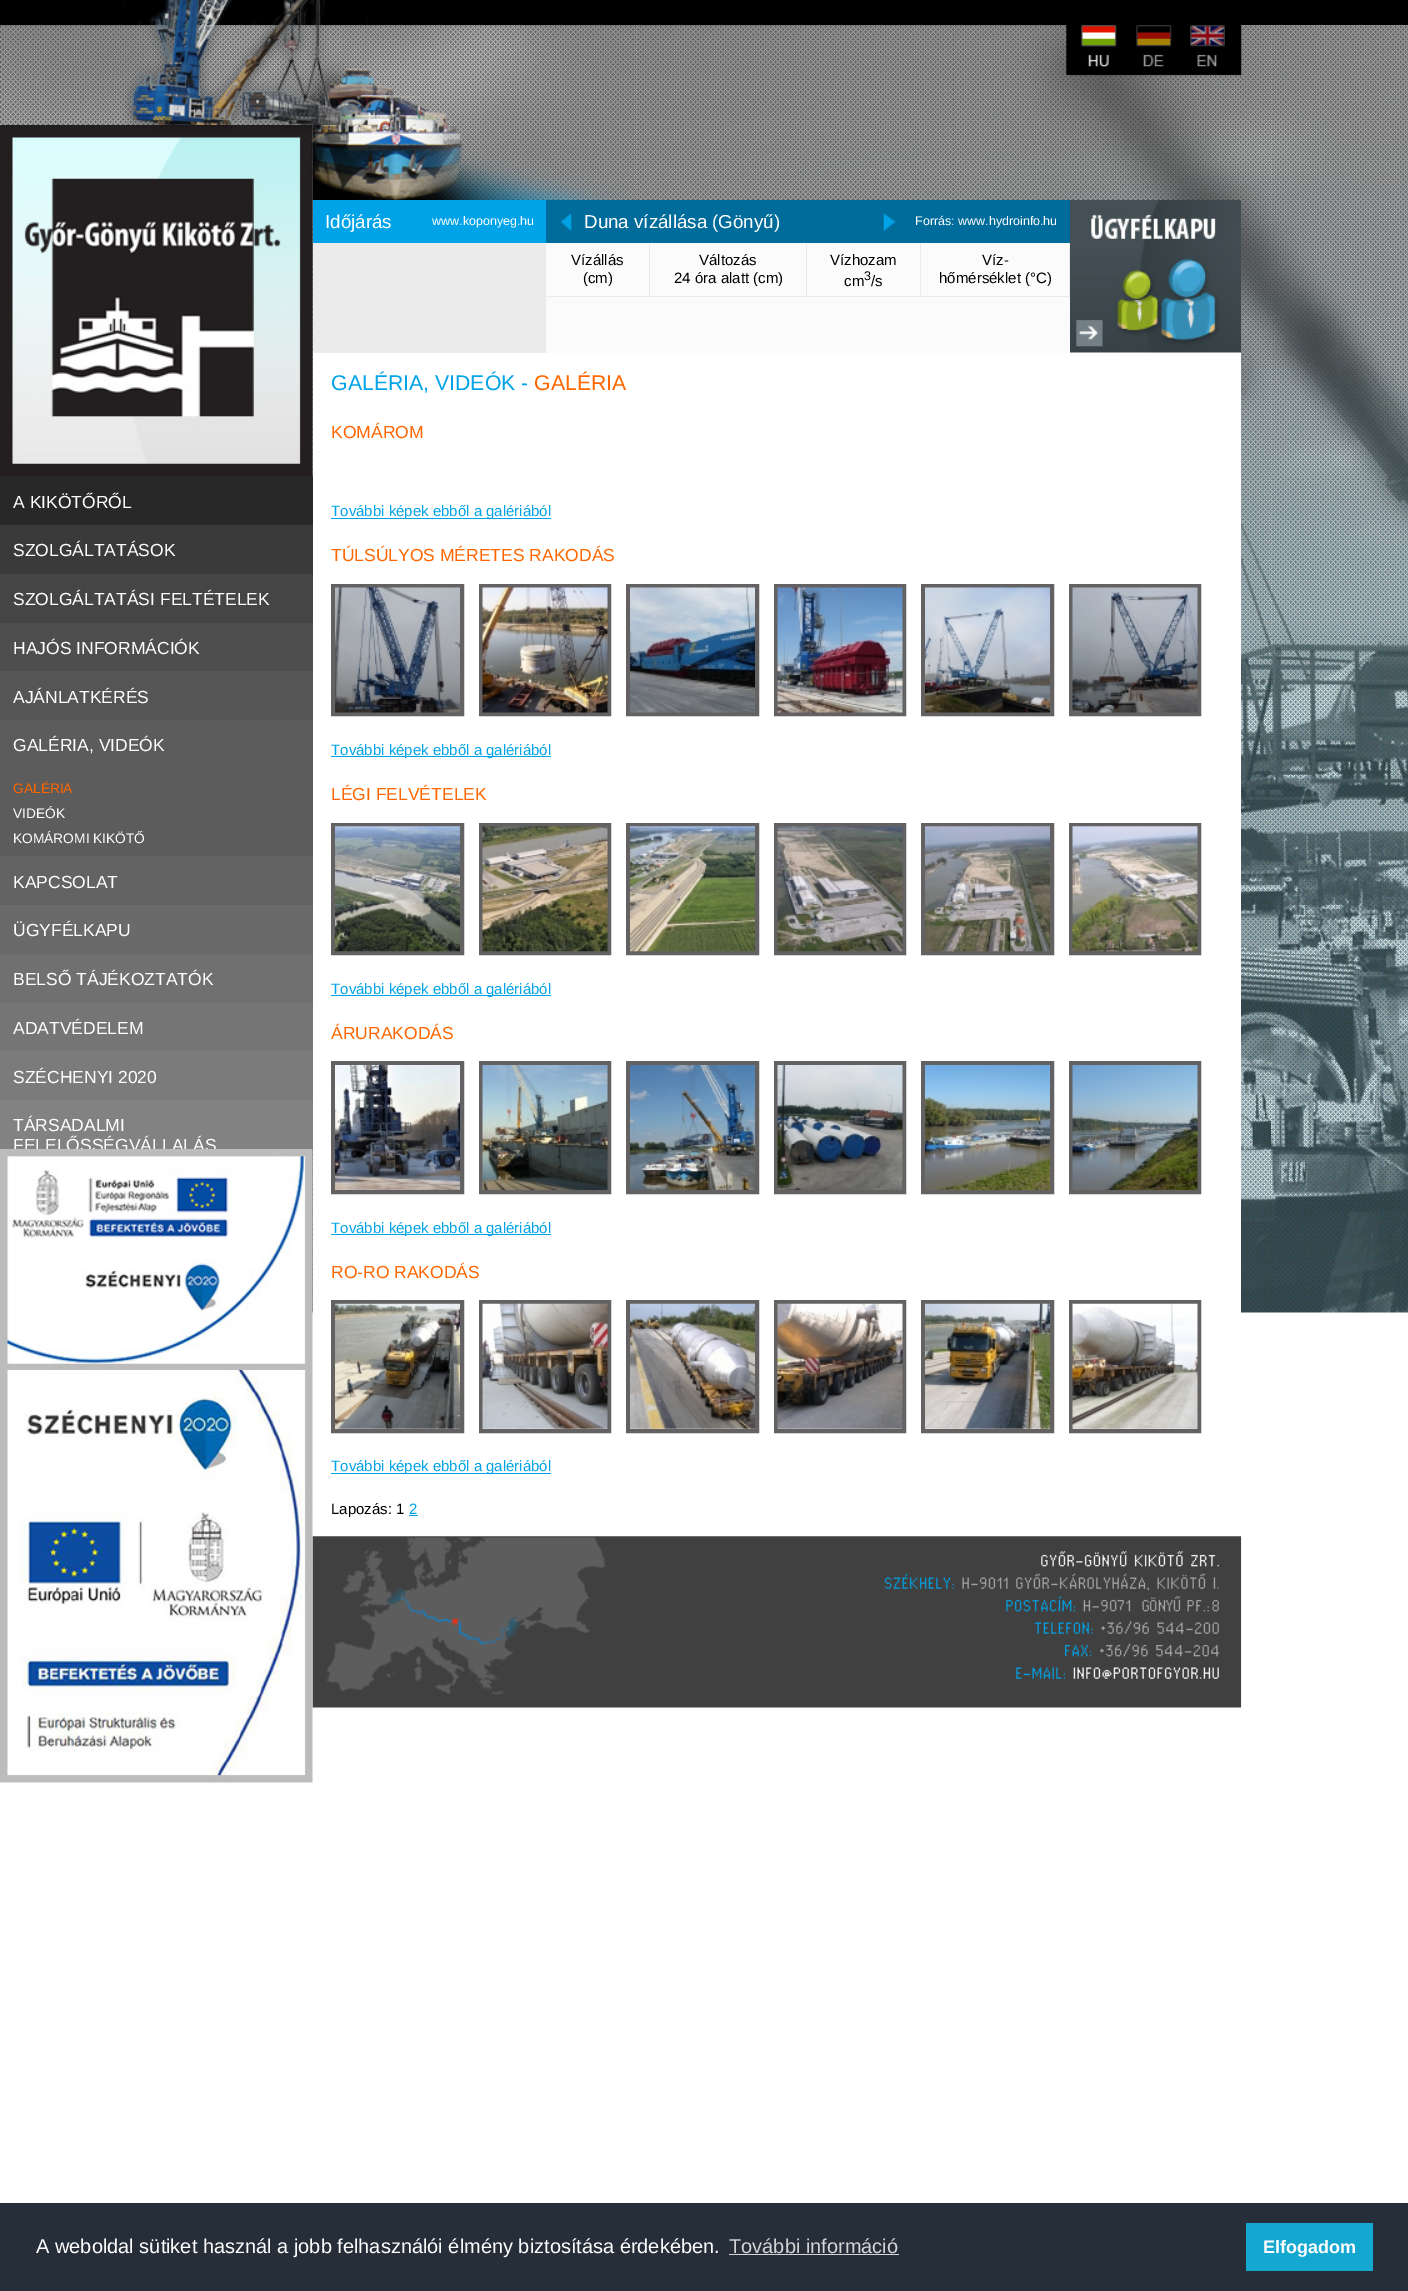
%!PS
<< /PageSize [1408 2291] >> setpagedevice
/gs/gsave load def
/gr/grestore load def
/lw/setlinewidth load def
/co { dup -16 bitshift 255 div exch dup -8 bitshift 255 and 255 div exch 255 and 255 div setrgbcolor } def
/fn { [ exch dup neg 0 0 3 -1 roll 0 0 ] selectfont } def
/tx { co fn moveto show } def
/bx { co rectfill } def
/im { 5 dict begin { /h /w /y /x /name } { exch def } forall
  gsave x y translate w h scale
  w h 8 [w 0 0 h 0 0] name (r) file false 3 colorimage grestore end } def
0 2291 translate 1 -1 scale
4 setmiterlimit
0 0 1408 2291 16#FFFFFF bx
(media/1.raw) 0 25 1408 1288 im
0 0 1408 25 16#000000 bx
(media/2.raw) 0 0 1242 200 im
(media/3.raw) 1081 25 36 42 im
(media/4.raw) 1136 25 36 42 im
(media/5.raw) 1190 25 35 42 im
(media/6.raw) 0 125 313 351 im
0 476 313 49 16#282828 bx
0 525 313 49 16#3A3A3A bx
0 574 313 49 16#454545 bx
0 623 313 48 16#4E4E4E bx
0 671 313 49 16#555555 bx
0 720 313 136 16#5C5C5C bx
0 856 313 49 16#636363 bx
0 905 313 49 16#6A6A6A bx
0 954 313 49 16#707070 bx
0 1003 313 48 16#757575 bx
0 1051 313 49 16#7B7B7B bx
0 1100 313 49 16#828282 bx
(media/7.raw) 0 1149 313 221 im
(media/8.raw) 0 1370 313 413 im
313 352 928 961 16#FFFFFF bx
313 243 233 110 16#EBEBEB bx
313 200 233 43 16#00A3E7 bx
546 243 524 110 16#FBFBFB bx
546 200 524 43 16#006C9B bx
(media/9.raw) 559 213 13 19 im
(media/10.raw) 883 213 13 19 im
649 243 1 55 16#EBEBEB bx
546 296 104 1 16#EBEBEB bx
806 243 1 55 16#EBEBEB bx
650 296 158 1 16#EBEBEB bx
920 243 1 55 16#EBEBEB bx
808 296 113 1 16#EBEBEB bx
1069 243 1 55 16#EBEBEB bx
921 296 149 1 16#EBEBEB bx
(media/11.raw) 1070 200 172 153 im
331 518 220 1 16#00A3E7 bx
16#646162 co
4 lw
333 586 129 128 rectstroke
(media/12.raw) 335 587 125 126 im
481 586 128 128 rectstroke
(media/13.raw) 482 587 126 126 im
628 586 129 128 rectstroke
(media/14.raw) 630 587 125 126 im
776 586 128 128 rectstroke
(media/15.raw) 777 587 126 126 im
923 586 129 128 rectstroke
(media/16.raw) 925 587 125 126 im
1071 586 128 128 rectstroke
(media/17.raw) 1072 587 126 126 im
331 756 220 1 16#00A3E7 bx
16#646162 co
333 825 129 128 rectstroke
(media/18.raw) 335 826 125 126 im
481 825 128 128 rectstroke
(media/19.raw) 482 826 126 126 im
628 825 129 128 rectstroke
(media/20.raw) 630 826 125 126 im
776 825 128 128 rectstroke
(media/21.raw) 777 826 126 126 im
923 825 129 128 rectstroke
(media/22.raw) 925 826 125 126 im
1071 825 128 128 rectstroke
(media/23.raw) 1072 826 126 126 im
331 995 220 1 16#00A3E7 bx
16#646162 co
333 1063 129 129 rectstroke
(media/24.raw) 335 1065 125 125 im
481 1063 128 129 rectstroke
(media/25.raw) 482 1065 126 125 im
628 1063 129 129 rectstroke
(media/26.raw) 630 1065 125 125 im
776 1063 128 129 rectstroke
(media/27.raw) 777 1065 126 125 im
923 1063 129 129 rectstroke
(media/28.raw) 925 1065 125 125 im
1071 1063 128 129 rectstroke
(media/29.raw) 1072 1065 126 125 im
331 1234 220 1 16#00A3E7 bx
16#646162 co
333 1302 129 129 rectstroke
(media/30.raw) 335 1303 125 126 im
481 1302 128 129 rectstroke
(media/31.raw) 482 1303 126 126 im
628 1302 129 129 rectstroke
(media/32.raw) 630 1303 125 126 im
776 1302 128 129 rectstroke
(media/33.raw) 777 1303 126 126 im
923 1302 129 129 rectstroke
(media/34.raw) 925 1303 125 126 im
1071 1302 128 129 rectstroke
(media/35.raw) 1072 1303 126 126 im
331 1473 220 1 16#00A3E7 bx
409 1515 9 1 16#00A3E7 bx
(media/36.raw) 312 1536 930 172 im
0 2203 1408 88 16#252E39 bx
729 2254 170 1 16#D3D5D7 bx
1246 2223 127 48 16#14A7D0 bx
(A KIKÖTŐRŐL) 13 508 /LiberationSans-Regular 17.5 16#FFFFFF tx
(SZOLGÁLTATÁSOK) 13 556 /LiberationSans-Regular 17.5 16#FFFFFF tx
(SZOLGÁLTATÁSI FELTÉTELEK) 13 605 /LiberationSans-Regular 17.5 16#FFFFFF tx
(HAJÓS INFORMÁCIÓK) 13 654 /LiberationSans-Regular 17.5 16#FFFFFF tx
(AJÁNLATKÉRÉS) 13 703 /LiberationSans-Regular 17.5 16#FFFFFF tx
(GALÉRIA, VIDEÓK) 13 751 /LiberationSans-Regular 17.5 16#FFFFFF tx
(GALÉRIA) 13 793 /LiberationSans-Regular 13.75 16#FF6600 tx
(VIDEÓK) 13 818 /LiberationSans-Regular 13.75 16#FFFFFF tx
(KOMÁROMI KIKÖTŐ) 13 843 /LiberationSans-Regular 13.75 16#FFFFFF tx
(KAPCSOLAT) 13 888 /LiberationSans-Regular 17.5 16#FFFFFF tx
(ÜGYFÉLKAPU) 13 936 /LiberationSans-Regular 17.5 16#FFFFFF tx
(BELSŐ TÁJÉKOZTATÓK) 13 985 /LiberationSans-Regular 17.5 16#FFFFFF tx
(ADATVÉDELEM) 13 1034 /LiberationSans-Regular 17.5 16#FFFFFF tx
(SZÉCHENYI 2020) 13 1083 /LiberationSans-Regular 17.5 16#FFFFFF tx
(TÁRSADALMI) 13 1131 /LiberationSans-Regular 17.5 16#FFFFFF tx
gs
0 1100 313 49 rectclip
(FELELŐSSÉGVÁLLALÁS) 13 1151 /LiberationSans-Regular 17.5 16#FFFFFF tx
gr
(Időjárás) 325 228 /LiberationSans-Regular 18.75 16#FFFFFF tx
(www.koponyeg.hu) 432 225 /LiberationSans-Regular 12.5 16#FFFFFF tx
(Duna vízállása \(Gönyű\)) 584 228 /LiberationSans-Regular 18.75 16#FFFFFF tx
(Forrás: www.hydroinfo.hu) 915 225 /LiberationSans-Regular 12.5 16#FFFFFF tx
(Vízállás) 571 265 /LiberationSans-Regular 15 16#000000 tx
(\(cm\)) 583 283 /LiberationSans-Regular 15 16#000000 tx
(Változás) 699 265 /LiberationSans-Regular 15 16#000000 tx
(24 óra alatt \(cm\)) 674 283 /LiberationSans-Regular 15 16#000000 tx
(Vízhozam) 830 265 /LiberationSans-Regular 15 16#000000 tx
(cm) 844 286 /LiberationSans-Regular 15 16#000000 tx
(3) 864 280 /LiberationSans-Regular 12.5 16#000000 tx
(/s) 871 286 /LiberationSans-Regular 15 16#000000 tx
(Víz-) 982 265 /LiberationSans-Regular 15 16#000000 tx
(hőmérséklet \(°C\)) 939 283 /LiberationSans-Regular 15 16#000000 tx
(GALÉRIA, VIDEÓK -) 331 390 /LiberationSans-Regular 21.25 16#00A3E7 tx
(GALÉRIA) 534 390 /LiberationSans-Regular 21.25 16#FF6600 tx
(KOMÁROM) 331 438 /LiberationSans-Regular 17.5 16#FF6600 tx
(További képek ebből a galériából) 331 516 /LiberationSans-Regular 15 16#00A3E7 tx
(TÚLSÚLYOS MÉRETES RAKODÁS) 331 561 /LiberationSans-Regular 17.5 16#FF6600 tx
(További képek ebből a galériából) 331 755 /LiberationSans-Regular 15 16#00A3E7 tx
(LÉGI FELVÉTELEK) 331 800 /LiberationSans-Regular 17.5 16#FF6600 tx
(További képek ebből a galériából) 331 994 /LiberationSans-Regular 15 16#00A3E7 tx
(ÁRURAKODÁS) 331 1039 /LiberationSans-Regular 17.5 16#FF6600 tx
(További képek ebből a galériából) 331 1233 /LiberationSans-Regular 15 16#00A3E7 tx
(RO-RO RAKODÁS) 331 1278 /LiberationSans-Regular 17.5 16#FF6600 tx
(További képek ebből a galériából) 331 1471 /LiberationSans-Regular 15 16#00A3E7 tx
(Lapozás: 1) 331 1514 /LiberationSans-Regular 15 16#000000 tx
(2) 409 1514 /LiberationSans-Regular 15 16#00A3E7 tx
(A weboldal sütiket használ a jobb felhasználói élmény biztosítása érdekében.) 36 2253 /LiberationSans-Regular 20 16#FFFFFF tx
(További információ) 729 2253 /LiberationSans-Regular 20 16#D3D5D7 tx
(Elfogadom) 1263 2253 /LiberationSans-Bold 18 16#FFFFFF tx
showpage
